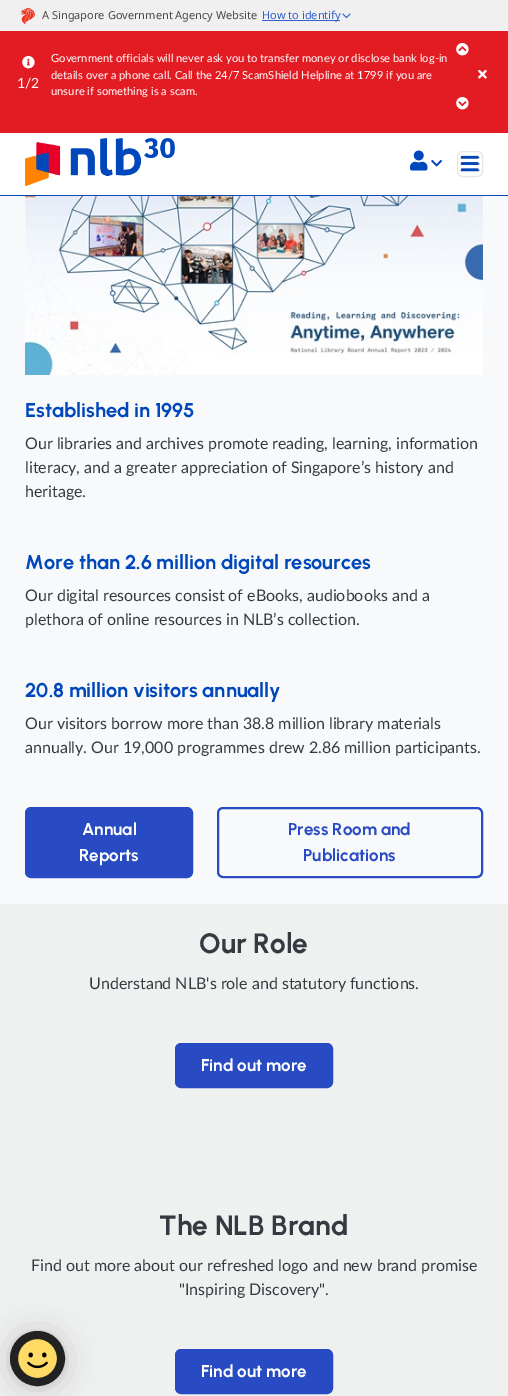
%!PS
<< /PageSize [508 1396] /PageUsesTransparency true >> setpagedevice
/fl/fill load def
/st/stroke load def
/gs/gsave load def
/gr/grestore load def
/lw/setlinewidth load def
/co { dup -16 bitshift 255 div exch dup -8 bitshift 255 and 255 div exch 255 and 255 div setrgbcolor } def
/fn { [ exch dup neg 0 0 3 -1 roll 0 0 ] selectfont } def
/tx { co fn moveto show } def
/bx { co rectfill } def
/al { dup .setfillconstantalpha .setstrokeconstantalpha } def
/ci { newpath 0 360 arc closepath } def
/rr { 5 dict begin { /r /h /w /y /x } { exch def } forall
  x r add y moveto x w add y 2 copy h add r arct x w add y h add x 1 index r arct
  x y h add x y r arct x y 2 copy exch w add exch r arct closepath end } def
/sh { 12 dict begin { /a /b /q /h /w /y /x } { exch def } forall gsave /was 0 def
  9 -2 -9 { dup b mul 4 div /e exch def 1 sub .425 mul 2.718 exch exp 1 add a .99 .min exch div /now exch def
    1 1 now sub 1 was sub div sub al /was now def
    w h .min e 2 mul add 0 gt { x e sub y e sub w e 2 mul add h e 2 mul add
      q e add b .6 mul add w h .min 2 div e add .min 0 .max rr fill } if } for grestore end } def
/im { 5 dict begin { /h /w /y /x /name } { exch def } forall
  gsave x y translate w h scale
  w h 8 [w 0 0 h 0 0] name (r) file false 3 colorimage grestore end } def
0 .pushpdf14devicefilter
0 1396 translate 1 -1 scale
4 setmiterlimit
0 0 508 1396 16#F8F9FA bx
0 133 508 62 16#FFFFFF bx
0 195 508 1 16#0047BB bx
0 0 508 31 16#F0F0F0 bx
(media/1.raw) 21 8 14 17 im
262 20 78 1 16#2F60CE bx
(media/2.raw) 342 13 9 6 im
0 31 508 102 16#E31B23 bx
(media/3.raw) 456 43 13 13 im
(media/4.raw) 22 56 13 13 im
(media/5.raw) 456 97 13 13 im
(media/6.raw) 478 69 9 10 im
(media/7.raw) 25 138 150 48 im
(media/8.raw) 410 150 18 21 im
(media/9.raw) 431 159 11 8 im
16#E6E6E6 co
457.5 151.5 25 25 5.5 rr st
(media/10.raw) 460 156 20 16 im
(media/11.raw) 461 155 18 17 im
(media/12.raw) 25 196 458 179 im
16#284BC3 co
26 808 166 69 5 rr gs fl gr
2 lw
st
218 808 264 69 5 rr st
0 904 508 492 16#EFF0F0 bx
16#284BC3 co
176 1044 156 43 5 rr gs fl gr
st
176 1350 156 43 5 rr gs fl gr
st
16#000000 co
10 1333 55 55 27.5 16 .16 sh
10 1332 55 55 27.5 3 .06 sh
16#FFDB66 co
37.5 1358.5 23.5 ci gs fl gr
16#222222 co
8 lw
st
(media/13.raw) 27 1352 21 17 im
(A Singapore Government Agency Website) 42 19 /NotoSans-Regular 11 16#474747 tx
(How to identify) 262 19 /NotoSans-Regular 11 16#2F60CE tx
(1/2) 17 88 /Lato-Regular 14 16#FFFFFF tx
(Government officials will never ask you to transfer money or disclose bank log-in) 51 62 /Lato-Regular 11.2 16#FFFFFF tx
(details over a phone call. Call the 24/7 ScamShield Helpline at 1799 if you are) 51 79 /Lato-Regular 11.2 16#FFFFFF tx
(unsure if something is a scam.) 51 95 /Lato-Regular 11.2 16#FFFFFF tx
(Established in 1995) 25 417 /Urbanist-Bold 20 16#0047BB tx
(Our libraries and archives promote reading, learning, information) 25 449 /Lato-Regular 16 16#343A40 tx
(literacy, and a greater appreciation of Singapore’s history and) 25 473 /Lato-Regular 16 16#343A40 tx
(heritage.) 25 497 /Lato-Regular 16 16#343A40 tx
(More than 2.6 million digital resources) 25 569 /Urbanist-Bold 20 16#0047BB tx
(Our digital resources consist of eBooks, audiobooks and a) 25 601 /Lato-Regular 16 16#343A40 tx
(plethora of online resources in NLB’s collection.) 25 625 /Lato-Regular 16 16#343A40 tx
(20.8 million visitors annually) 25 697 /Urbanist-Bold 20 16#0047BB tx
(Our visitors borrow more than 38.8 million library materials) 25 729 /Lato-Regular 16 16#343A40 tx
(annually. Our 19,000 programmes drew 2.86 million participants.) 25 753 /Lato-Regular 16 16#343A40 tx
(Annual) 82 835 /Urbanist-Bold 17 16#FFFFFF tx
(Reports) 79 861 /Urbanist-Bold 17 16#FFFFFF tx
(Press Room and) 288 835 /Urbanist-Bold 17 16#284BC3 tx
(Publications) 303 861 /Urbanist-Bold 17 16#284BC3 tx
(Our Role) 199 953 /Urbanist-Bold 28 16#343A40 tx
(Understand NLB's role and statutory functions.) 89 989 /Lato-Regular 16 16#343A40 tx
(Find out more) 201 1071 /Urbanist-Bold 17 16#FFFFFF tx
(The NLB Brand) 159 1235 /Urbanist-Bold 28 16#343A40 tx
(Find out more about our refreshed logo and new brand promise) 31 1271 /Lato-Regular 16 16#343A40 tx
("Inspiring Discovery".) 179 1295 /Lato-Regular 16 16#343A40 tx
(Find out more) 201 1377 /Urbanist-Bold 17 16#FFFFFF tx
.poppdf14devicefilter showpage
